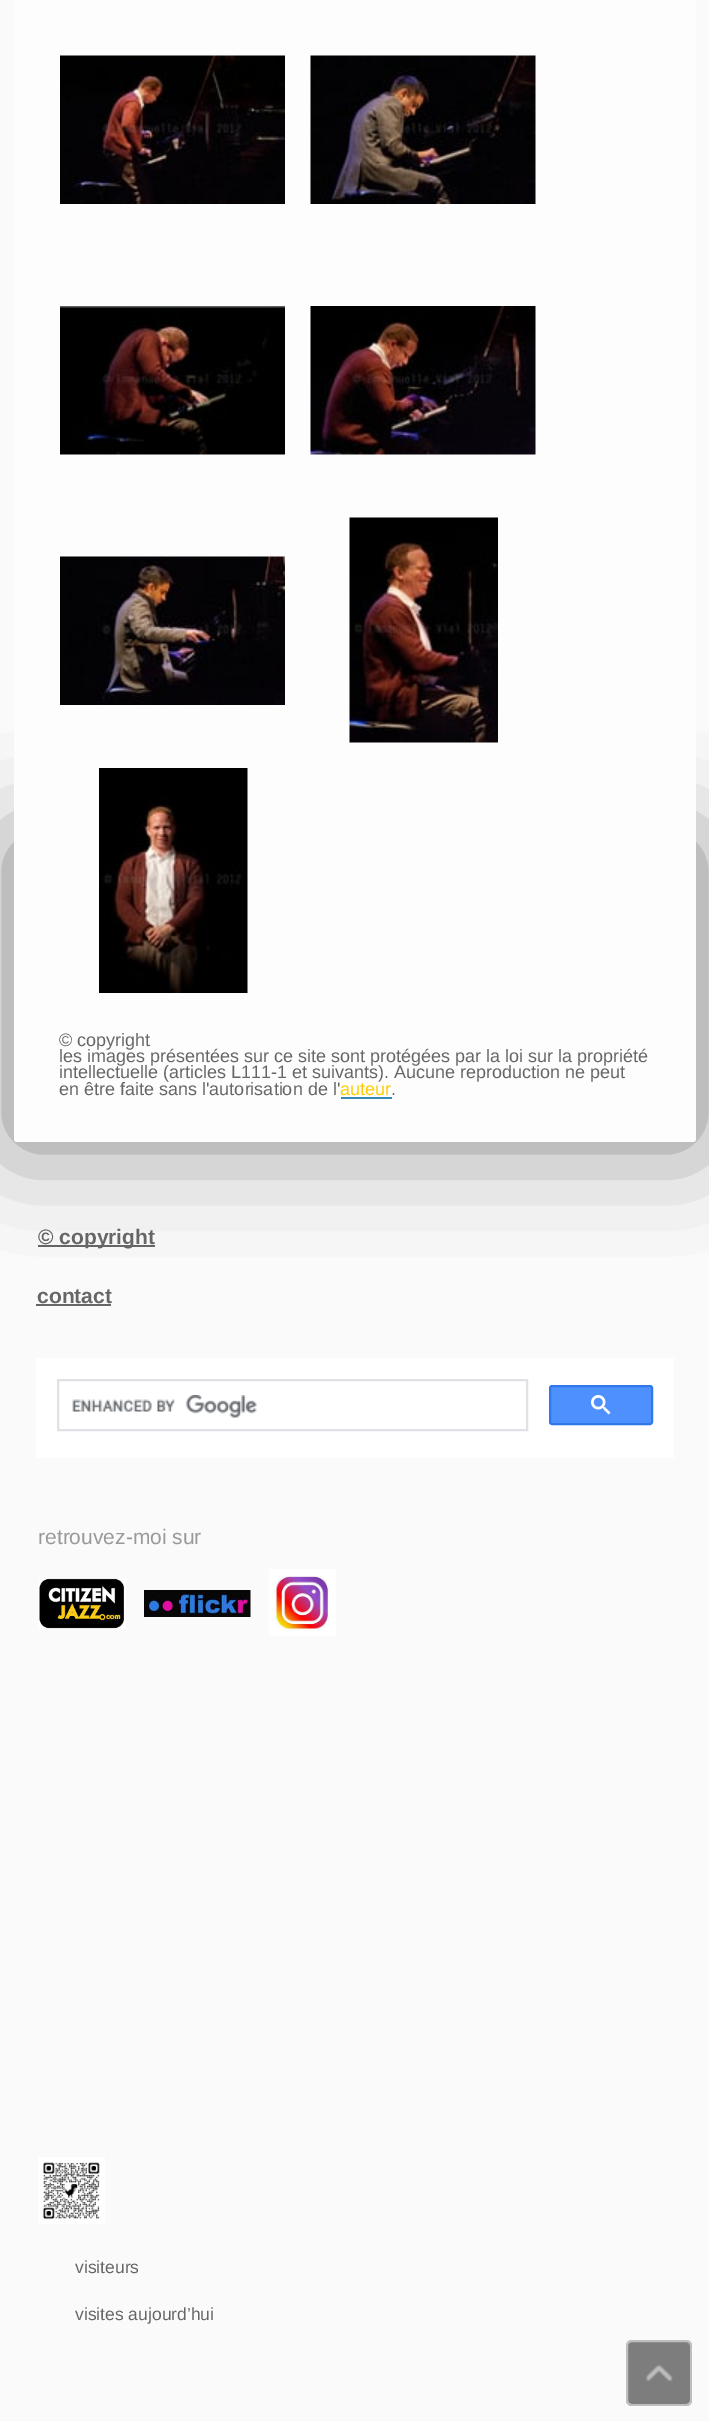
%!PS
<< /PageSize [709 2421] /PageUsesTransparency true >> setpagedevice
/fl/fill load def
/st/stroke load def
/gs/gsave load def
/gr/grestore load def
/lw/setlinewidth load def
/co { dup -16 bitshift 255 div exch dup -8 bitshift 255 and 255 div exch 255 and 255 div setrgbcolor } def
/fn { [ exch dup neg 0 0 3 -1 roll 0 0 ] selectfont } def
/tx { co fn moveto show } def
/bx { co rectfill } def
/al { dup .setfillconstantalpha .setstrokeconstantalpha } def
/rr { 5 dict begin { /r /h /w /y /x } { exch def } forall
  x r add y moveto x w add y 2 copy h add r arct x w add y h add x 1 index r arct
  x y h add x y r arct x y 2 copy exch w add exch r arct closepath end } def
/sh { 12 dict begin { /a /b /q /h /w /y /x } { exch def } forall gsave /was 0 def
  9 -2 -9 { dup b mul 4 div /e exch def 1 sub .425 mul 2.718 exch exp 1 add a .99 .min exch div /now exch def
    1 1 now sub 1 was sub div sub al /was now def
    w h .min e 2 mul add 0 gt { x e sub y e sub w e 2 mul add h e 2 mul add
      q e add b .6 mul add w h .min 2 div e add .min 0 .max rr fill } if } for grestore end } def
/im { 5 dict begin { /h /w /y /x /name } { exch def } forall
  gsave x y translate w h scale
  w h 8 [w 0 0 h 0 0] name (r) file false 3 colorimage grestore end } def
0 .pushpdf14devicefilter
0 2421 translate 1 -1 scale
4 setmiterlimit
0 0 709 2421 16#FAFAFA bx
38 1245 117 2 16#666666 bx
16#333333 co
14 842 682 300 0 51 .6 sh
16#FDFDFD co
14 -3 682 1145 3 rr fl
(media/1.raw) 60 55 225 149 im
(media/2.raw) 310 55 226 149 im
(media/3.raw) 60 306 225 149 im
(media/4.raw) 310 306 226 149 im
(media/5.raw) 60 556 225 149 im
(media/6.raw) 349 517 149 226 im
(media/7.raw) 99 768 149 225 im
341 1097 51 2 16#3689B2 bx
36 1304 75 2 16#666666 bx
36 1358 638 100 16#FFFFFF bx
16#DFE1E5 co
2 lw
58 1380 469 50 rectstroke
(media/8.raw) 72 1395 185 23 im
16#4D90FE co
550 1386 102 38 2 rr gs fl gr
16#3079ED co
st
(media/9.raw) 591 1395 20 20 im
(media/10.raw) 38 1578 88 51 im
(media/11.raw) 144 1590 107 27 im
(media/12.raw) 269 1569 67 67 im
(media/13.raw) 38 2157 67 67 im
16#7D7D7D co
626 2340 66 66 6 rr fl
0.5 al
16#FFFFFF co
627 2341 64 64 5 rr st
1 al
(media/14.raw) 646 2365 27 17 im
(© copyright) 59 1046 /LiberationSans-Regular 18 16#666666 tx
(les images présentées sur ce site sont protégées par la loi sur la propriété) 59 1062 /LiberationSans-Regular 18 16#666666 tx
(intellectuelle \(articles L111-1 et suivants\). Aucune reproduction ne peut) 59 1078 /LiberationSans-Regular 18 16#666666 tx
(en être faite sans l'autorisation de l') 59 1095 /LiberationSans-Regular 18 16#666666 tx
(auteur) 340 1095 /LiberationSans-Regular 18 16#FFCC00 tx
(.) 391 1095 /LiberationSans-Regular 18 16#666666 tx
(© copyright) 38 1244 /LiberationSans-Bold 21 16#666666 tx
(contact) 37 1303 /LiberationSans-Bold 21 16#666666 tx
(retrouvez-moi sur) 38 1544 /LiberationSans-Regular 21 16#999999 tx
(visiteurs) 75 2273 /LiberationSans-Regular 17.5 16#666666 tx
(visites aujourd’hui) 75 2320 /LiberationSans-Regular 17.5 16#666666 tx
.poppdf14devicefilter showpage
